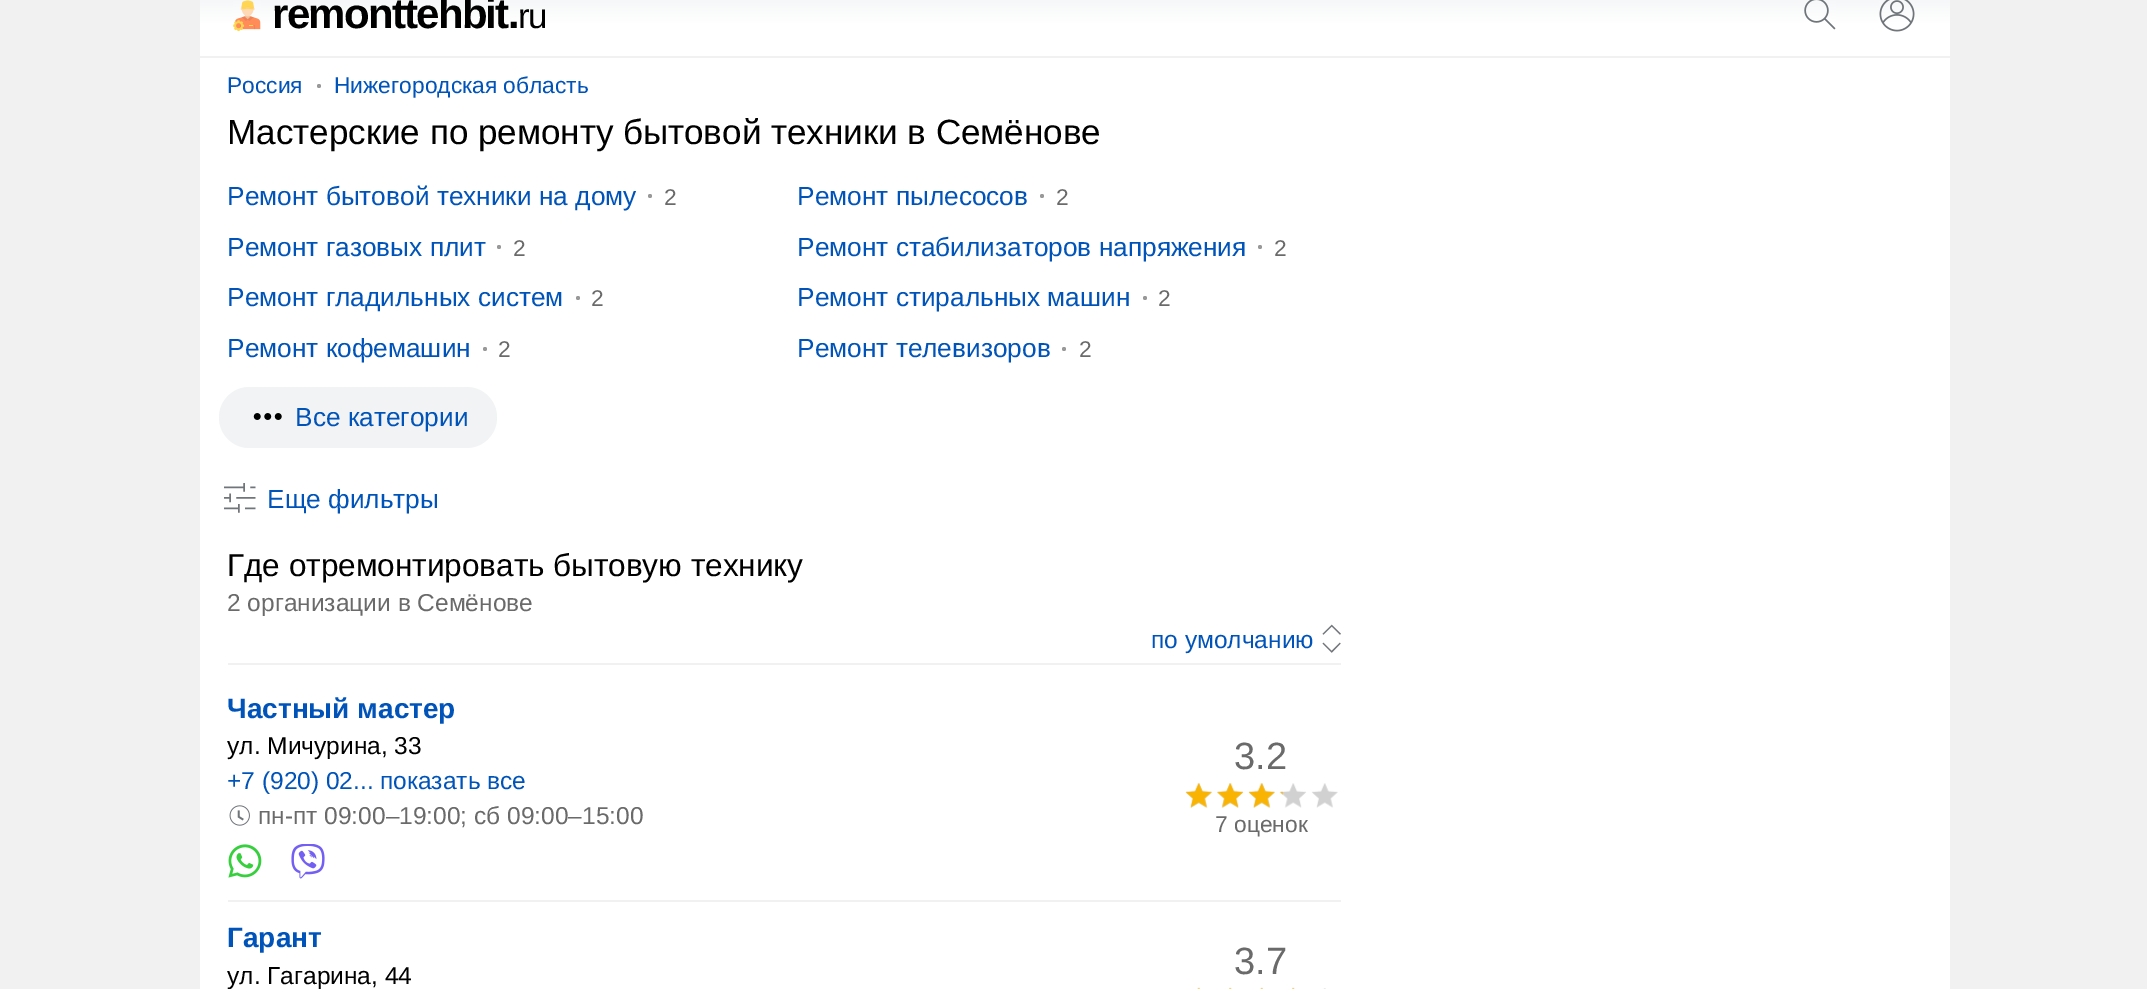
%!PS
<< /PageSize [2147 989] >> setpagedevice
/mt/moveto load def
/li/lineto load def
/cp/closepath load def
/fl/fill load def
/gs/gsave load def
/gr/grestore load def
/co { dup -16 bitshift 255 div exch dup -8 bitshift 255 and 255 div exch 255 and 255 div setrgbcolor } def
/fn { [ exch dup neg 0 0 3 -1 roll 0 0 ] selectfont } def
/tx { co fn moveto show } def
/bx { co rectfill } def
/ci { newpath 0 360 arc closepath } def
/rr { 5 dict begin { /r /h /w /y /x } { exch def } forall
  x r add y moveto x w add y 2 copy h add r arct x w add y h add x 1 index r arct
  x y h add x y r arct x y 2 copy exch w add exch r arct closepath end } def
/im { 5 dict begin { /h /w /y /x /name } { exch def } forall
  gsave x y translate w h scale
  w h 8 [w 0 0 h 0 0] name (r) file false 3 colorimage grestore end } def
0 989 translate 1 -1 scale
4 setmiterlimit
0 0 2147 989 16#F1F1F1 bx
gs 200 0 mt 1950 0 li 1950 56 li 200 56 li cp clip newpath
<< /ShadingType 2 /ColorSpace /DeviceRGB /Coords [1075 -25 1075 56] /Extend [true true] /Function << /FunctionType 3 /Domain [0 1] /Functions [<< /FunctionType 2 /Domain [0 1] /C0 [.925 .937 .945] /C1 [1 1 1] /N 1 >> << /FunctionType 2 /Domain [0 1] /C0 [1 1 1] /C1 [1 1 1] /N 1 >>] /Bounds [.6] /Encode [0 1 0 1] >> >> shfill gr
(media/1.raw) 233 0 28 32 im
(media/2.raw) 1804 0 32 30 im
(media/3.raw) 1879 0 36 32 im
200 58 1750 931 16#FFFFFF bx
16#999999 co
319 86 2 ci fl
650 196 2 ci fl
1042 196 2 ci fl
499 247 2 ci fl
1260 247 2 ci fl
578 298 2 ci fl
1145 298 2 ci fl
485 349 2 ci fl
1064 349 2 ci fl
16#F1F3F4 co
219 387 278 61 30.5 rr fl
(media/4.raw) 253 413 29 7 im
(media/5.raw) 224 483 32 30 im
228 663 1113 2 16#F1F1F1 bx
(media/6.raw) 1322 624 19 29 im
(media/7.raw) 229 805 21 21 im
(media/8.raw) 228 844 34 34 im
(media/9.raw) 291 844 34 35 im
(media/11.raw) 1186 783 152 25 im
(media/10.raw) 1185 782 98 26 im
228 900 1113 2 16#F1F1F1 bx
(media/13.raw) 1197 988 129 1 im
(media/12.raw) 1197 987 98 2 im
/LiberationSans-Bold 42 fn
16#000000 co
272 28 mt -1.75 0 (remonttehbit.) ashow
/LiberationSans-Regular 35 fn
518 28 mt -1.75 0 (ru) ashow
(Россия) 227 93 /LiberationSans-Regular 22.75 16#0054B9 tx
(Нижегородская область) 334 93 /LiberationSans-Regular 22.75 16#0054B9 tx
(Мастерские по ремонту бытовой техники в Семёнове) 227 144 /LiberationSans-Regular 35 16#000000 tx
(Ремонт бытовой техники на дому) 227 205 /LiberationSans-Regular 26.25 16#0054B9 tx
(2) 664 205 /LiberationSans-Regular 22.75 16#6A6A6A tx
(Ремонт пылесосов) 797 205 /LiberationSans-Regular 26.25 16#0054B9 tx
(2) 1056 205 /LiberationSans-Regular 22.75 16#6A6A6A tx
(Ремонт газовых плит) 227 256 /LiberationSans-Regular 26.25 16#0054B9 tx
(2) 513 256 /LiberationSans-Regular 22.75 16#6A6A6A tx
(Ремонт стабилизаторов напряжения) 797 256 /LiberationSans-Regular 26.25 16#0054B9 tx
(2) 1274 256 /LiberationSans-Regular 22.75 16#6A6A6A tx
(Ремонт гладильных систем) 227 306 /LiberationSans-Regular 26.25 16#0054B9 tx
(2) 591 306 /LiberationSans-Regular 22.75 16#6A6A6A tx
(Ремонт стиральных машин) 797 306 /LiberationSans-Regular 26.25 16#0054B9 tx
(2) 1158 306 /LiberationSans-Regular 22.75 16#6A6A6A tx
(Ремонт кофемашин) 227 357 /LiberationSans-Regular 26.25 16#0054B9 tx
(2) 498 357 /LiberationSans-Regular 22.75 16#6A6A6A tx
(Ремонт телевизоров) 797 357 /LiberationSans-Regular 26.25 16#0054B9 tx
(2) 1079 357 /LiberationSans-Regular 22.75 16#6A6A6A tx
(Все категории) 295 426 /LiberationSans-Regular 26.25 16#0054B9 tx
(Еще фильтры) 267 508 /LiberationSans-Regular 26.25 16#0054B9 tx
(Где отремонтировать бытовую технику) 227 576 /LiberationSans-Regular 31.5 16#000000 tx
(2 организации в Семёнове) 227 611 /LiberationSans-Regular 24.5 16#6A6A6A tx
(по умолчанию) 1151 648 /LiberationSans-Regular 24.5 16#0054B9 tx
(Частный мастер) 227 718 /LiberationSans-Bold 28 16#0054B9 tx
(ул. Мичурина, 33) 227 754 /LiberationSans-Regular 24.5 16#000000 tx
(+7 \(920\) 02... показать все) 227 789 /LiberationSans-Regular 24.5 16#0054B9 tx
(пн-пт 09:00–19:00; сб 09:00–15:00) 258 824 /LiberationSans-Regular 24.5 16#6A6A6A tx
(3.2) 1234 769 /LiberationSans-Regular 38 16#6A6A6A tx
(7 оценок) 1215 832 /LiberationSans-Regular 22.75 16#6A6A6A tx
(Гарант) 227 947 /LiberationSans-Bold 28 16#0054B9 tx
(ул. Гагарина, 44) 227 984 /LiberationSans-Regular 24.5 16#000000 tx
(3.7) 1234 974 /LiberationSans-Regular 38 16#6A6A6A tx
showpage
